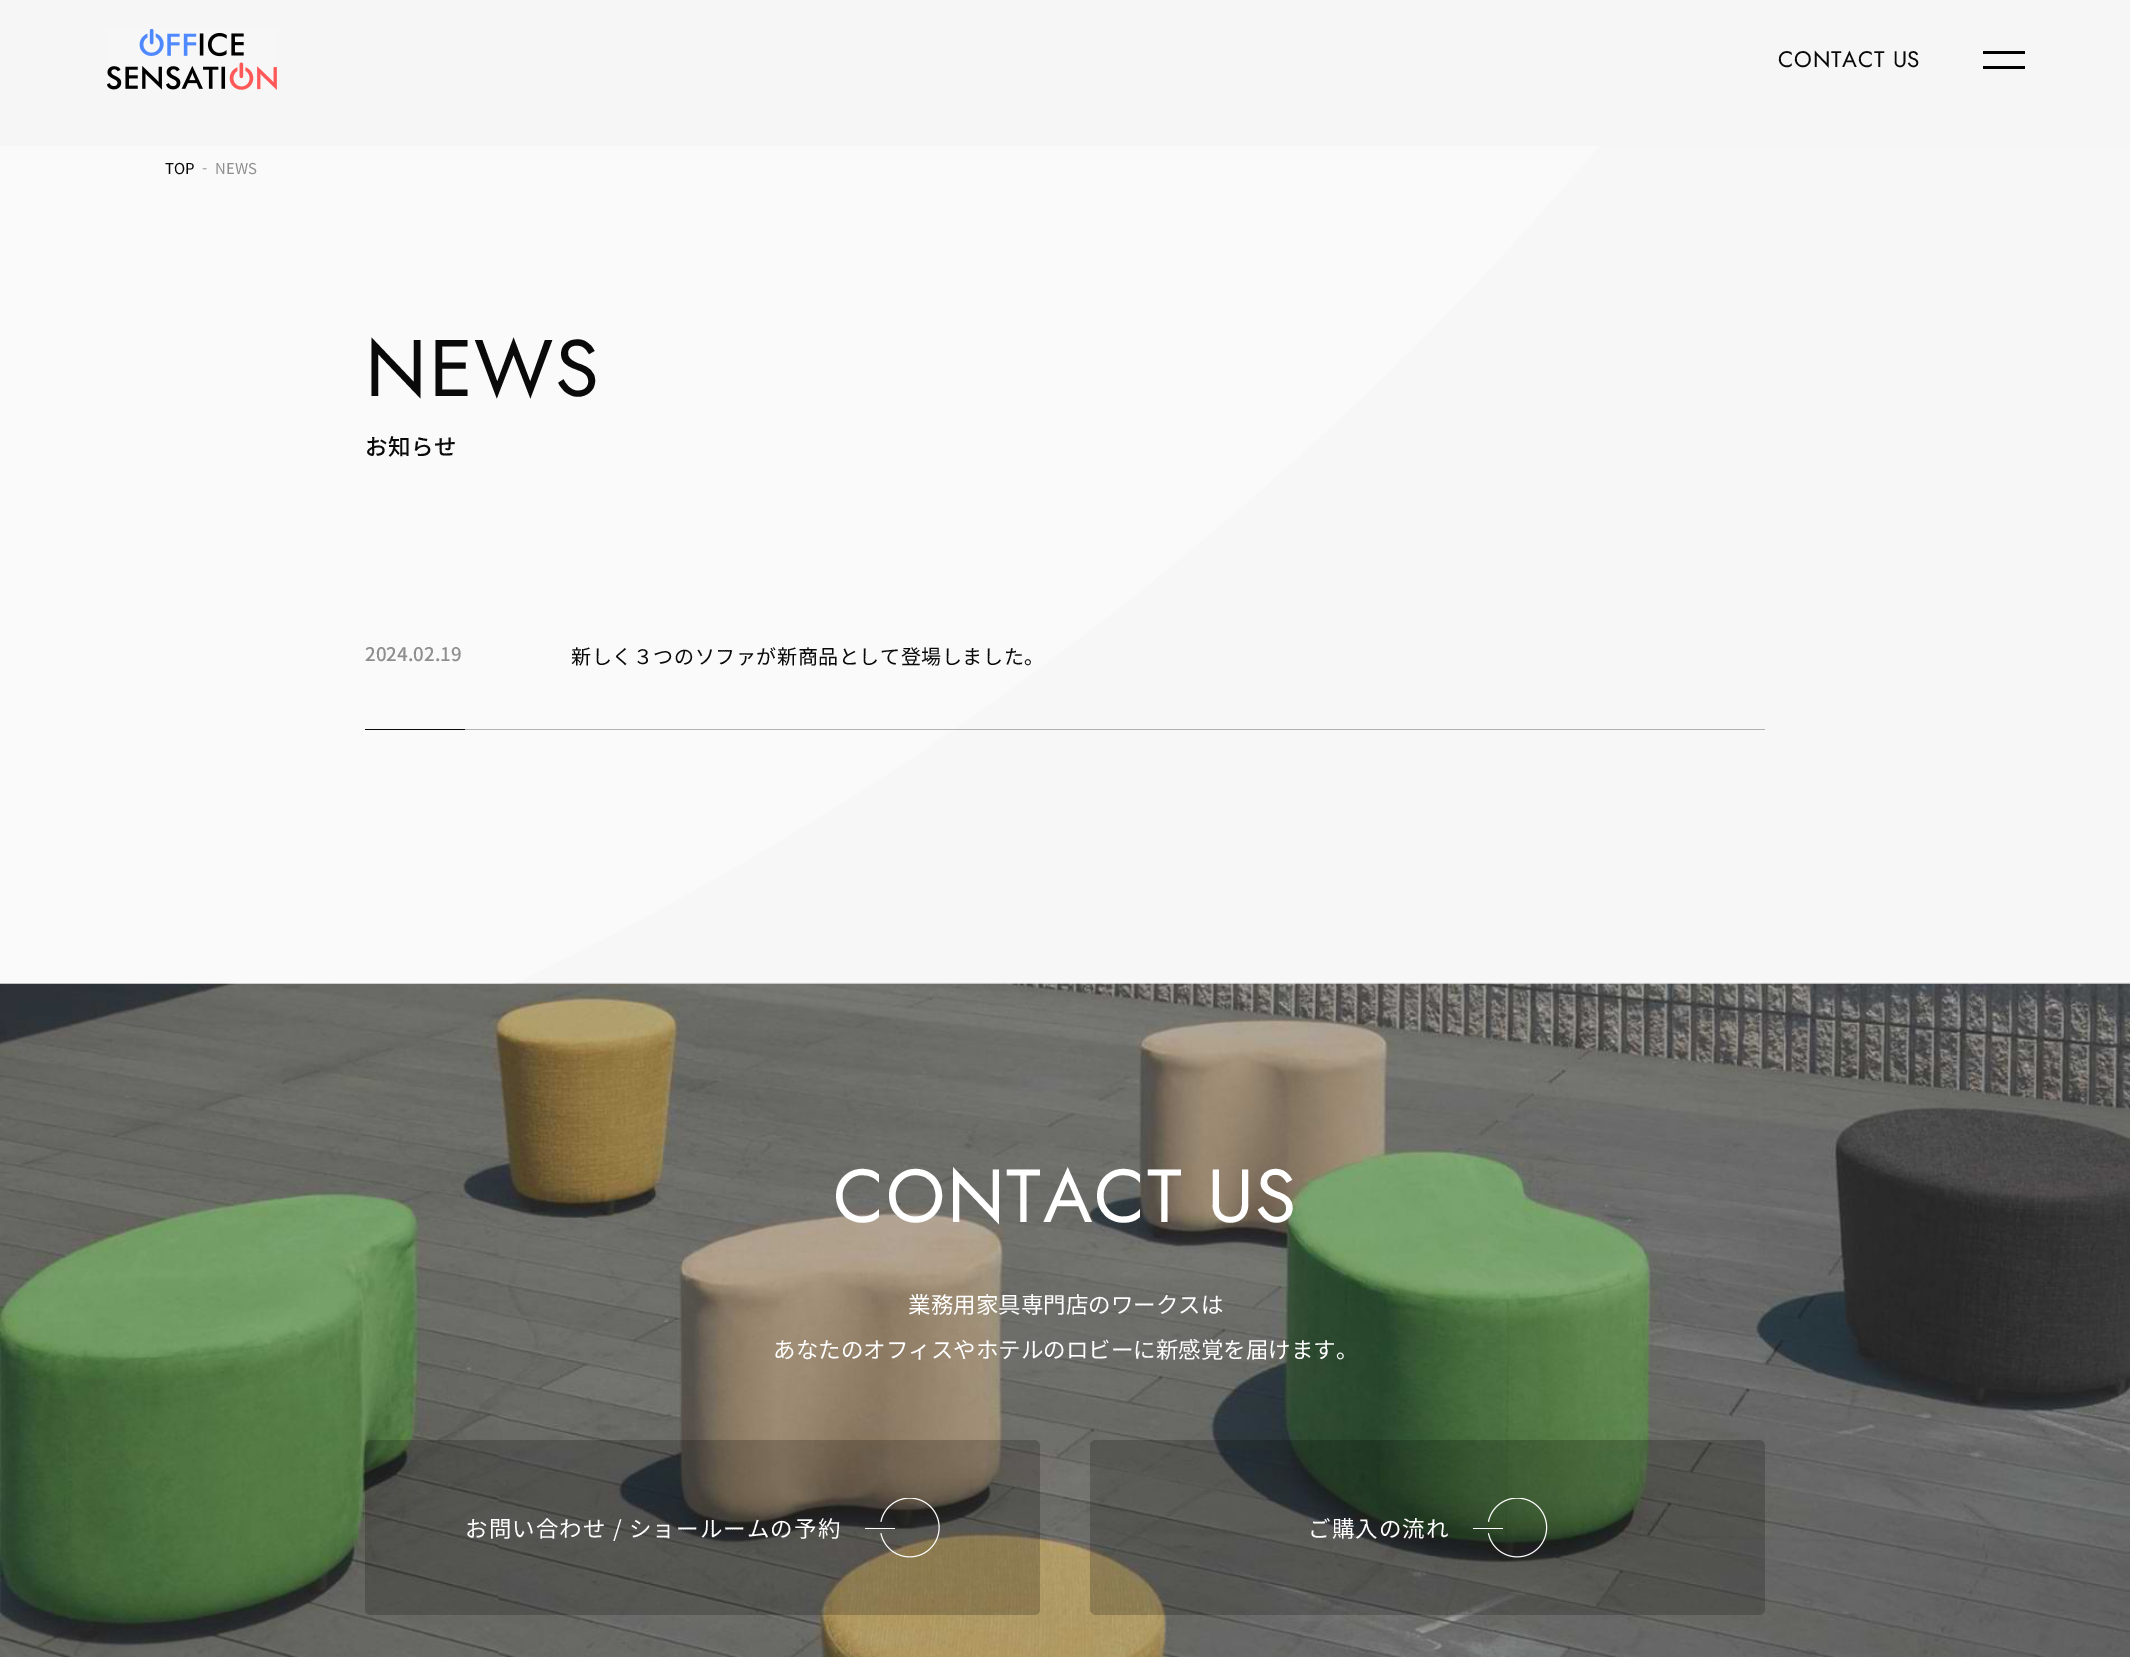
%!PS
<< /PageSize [2130 1657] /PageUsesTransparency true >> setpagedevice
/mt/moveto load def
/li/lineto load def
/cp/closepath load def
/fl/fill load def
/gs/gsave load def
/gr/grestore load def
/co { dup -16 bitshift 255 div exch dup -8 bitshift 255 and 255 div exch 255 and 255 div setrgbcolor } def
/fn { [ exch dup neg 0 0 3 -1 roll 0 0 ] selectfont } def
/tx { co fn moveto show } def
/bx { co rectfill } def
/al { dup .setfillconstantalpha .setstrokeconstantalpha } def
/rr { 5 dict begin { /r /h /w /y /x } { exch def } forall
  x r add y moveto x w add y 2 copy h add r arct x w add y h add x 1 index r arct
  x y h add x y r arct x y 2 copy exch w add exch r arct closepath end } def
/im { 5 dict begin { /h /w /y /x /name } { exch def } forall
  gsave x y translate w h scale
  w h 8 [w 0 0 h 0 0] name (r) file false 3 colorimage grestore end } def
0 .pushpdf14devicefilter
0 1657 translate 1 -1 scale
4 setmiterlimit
0 0 2130 1657 16#FFFFFF bx
gs 0 0 mt 2130 0 li 2130 984 li 0 984 li cp clip newpath
<< /ShadingType 2 /ColorSpace /DeviceRGB /Coords [1065 0 1065 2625] /Extend [true true] /Function << /FunctionType 3 /Domain [0 1] /Functions [<< /FunctionType 2 /Domain [0 1] /C0 [.969 .969 .969] /C1 [.937 .937 .937] /N 1 >> << /FunctionType 2 /Domain [0 1] /C0 [.937 .937 .937] /C1 [.937 .937 .937] /N 1 >>] /Bounds [.8] /Encode [0 1 0 1] >> >> shfill gr
(media/1.raw) 107 29 170 61 im
1983 51 42 3 16#000000 bx
1983 66 42 3 16#000000 bx
(media/2.raw) 0 146 2130 838 im
465 729 1300 1 16#B2B2B2 bx
365 729 100 1 16#0A0A0A bx
(media/3.raw) 0 983 2130 674 im
0.2 al
16#000000 co
365 1440 675 175 6 rr fl
1 al
(media/4.raw) 880 1498 60 60 im
865 1528 30 1 16#FFFFFF bx
0.2 al
16#000000 co
1090 1440 675 175 6 rr fl
1 al
(media/5.raw) 1488 1498 60 60 im
1473 1528 30 1 16#FFFFFF bx
/Jost-Regular 22.5 fn
16#0A0A0A co
1778 67 mt .75 0 (CONTACT US) ashow
(TOP) 165 174 /NotoSansJP-Regular 15 16#0A0A0A tx
(-) 202 173 /NotoSansJP-Regular 15 16#8E8E8E tx
(NEWS) 215 174 /NotoSansJP-Regular 15 16#8E8E8E tx
/Jost-Regular 80 fn
16#0A0A0A co
365 396 mt 1.5 0 (NEWS) ashow
/NotoSansJP-Medium 22.5 fn
365 455 mt .5 0 (お知らせ) ashow
(2024.02.19) 365 661 /NotoSansJP-Medium 18.75 16#8E8E8E tx
/NotoSansJP-Regular 20 fn
16#0A0A0A co
571 664 mt .6 0 (新しく３つのソファが新商品として登場しました。) ashow
/Jost-Regular 75 fn
16#FFFFFF co
833 1222 mt 1.5 0 (CONTACT US) ashow
(業務用家具専門店のワークスは) 908 1313 /NotoSansJP-Regular 22.5 16#FFFFFF tx
(あなたのオフィスやホテルのロビーに新感覚を届けます。) 773 1358 /NotoSansJP-Regular 22.5 16#FFFFFF tx
465 1537 mt 1.1 0 (お問い合わせ / ショールームの予約) ashow
1308 1537 mt 1.1 0 (ご購入の流れ) ashow
.poppdf14devicefilter showpage
